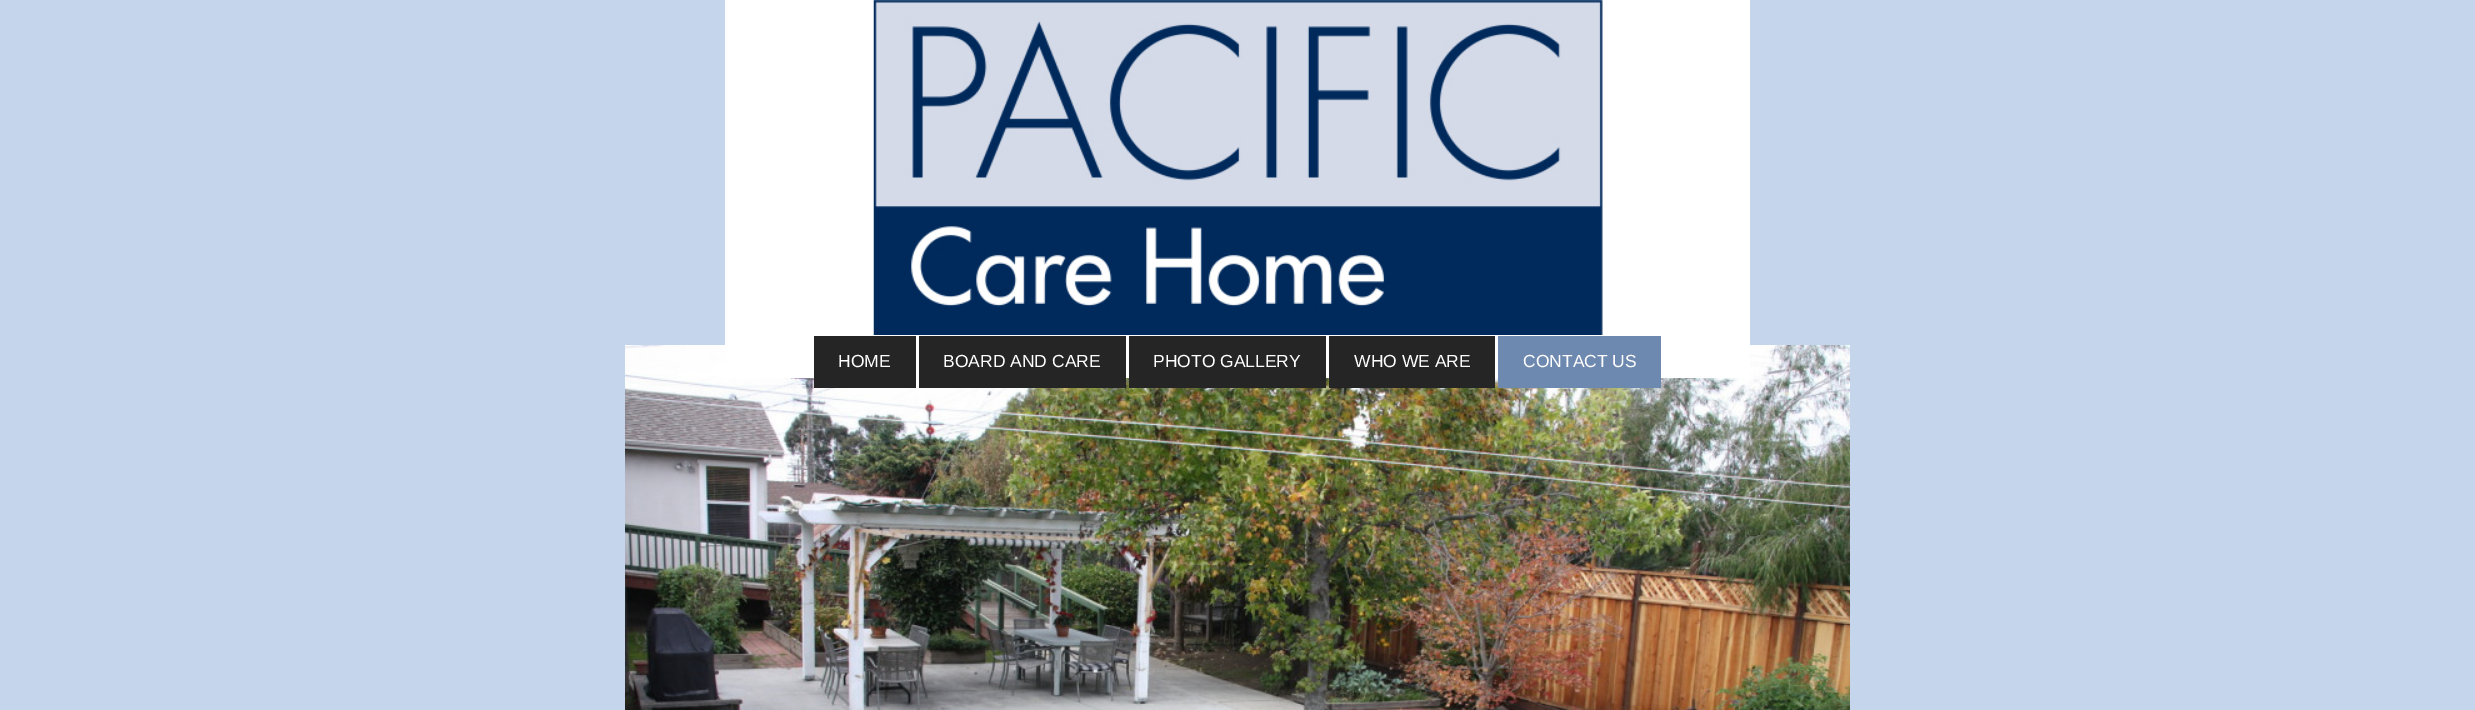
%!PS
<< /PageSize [2475 710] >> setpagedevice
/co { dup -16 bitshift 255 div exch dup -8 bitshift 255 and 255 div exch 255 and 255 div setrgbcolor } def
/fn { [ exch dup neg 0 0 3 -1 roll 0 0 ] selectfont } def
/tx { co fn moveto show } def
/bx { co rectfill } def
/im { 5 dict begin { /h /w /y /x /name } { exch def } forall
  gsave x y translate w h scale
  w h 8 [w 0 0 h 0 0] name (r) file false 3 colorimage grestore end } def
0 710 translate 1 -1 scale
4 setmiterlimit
0 0 2475 710 16#C4D5EC bx
(media/1.raw) 625 345 1225 365 im
725 0 1025 378 16#FFFFFF bx
(media/2.raw) 873 0 730 335 im
814 336 102 52 16#252525 bx
919 336 207 52 16#252525 bx
1129 336 197 52 16#252525 bx
1329 336 166 52 16#252525 bx
1498 336 163 52 16#6E89AF bx
(HOME) 838 367 /LiberationSans-Regular 17.5 16#FFFFFF tx
(BOARD AND CARE) 943 367 /LiberationSans-Regular 17.5 16#FFFFFF tx
(PHOTO GALLERY) 1153 367 /LiberationSans-Regular 17.5 16#FFFFFF tx
(WHO WE ARE) 1354 367 /LiberationSans-Regular 17.5 16#FFFFFF tx
(CONTACT US) 1523 367 /LiberationSans-Regular 17.5 16#FFFFFF tx
showpage
